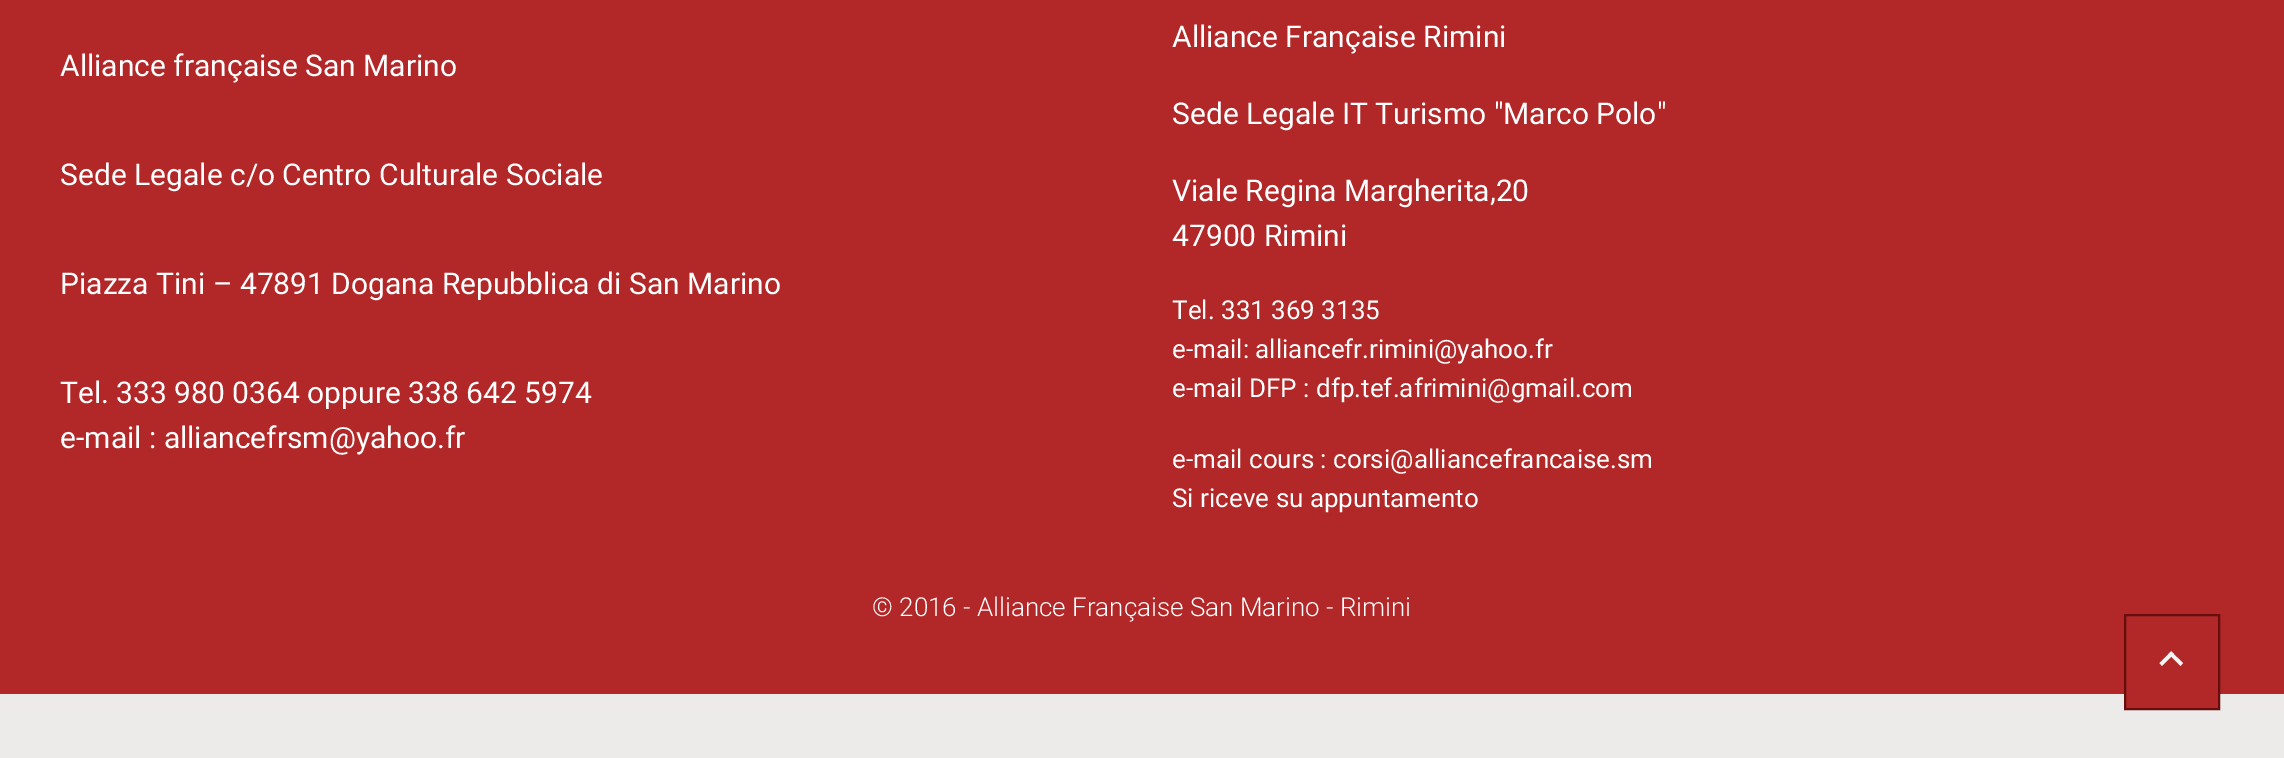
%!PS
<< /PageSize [2284 758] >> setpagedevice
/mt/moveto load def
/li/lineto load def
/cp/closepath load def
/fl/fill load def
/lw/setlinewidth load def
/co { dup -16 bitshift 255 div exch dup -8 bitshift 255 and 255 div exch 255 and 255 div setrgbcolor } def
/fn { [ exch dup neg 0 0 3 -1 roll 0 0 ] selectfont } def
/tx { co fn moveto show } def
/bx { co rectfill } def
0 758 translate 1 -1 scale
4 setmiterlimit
0 0 2284 758 16#ECEBE9 bx
0 0 2284 694 16#B22727 bx
2126 694 92 14 16#B22727 bx
16#660E0E co
2 lw
2125 615 94 94 rectstroke
16#F4F4F4 co
2159.5 663 mt 2171 651.5 li 2174 654 li 2162 666 li cp fl
2168.5 654 mt 2171 651.5 li 2183 663 li 2180.5 666 li cp fl
(Alliance française San Marino) 60 76 /Roboto-Regular 30 16#FFFFFF tx
(Sede Legale c/o Centro Culturale Sociale) 60 185 /Roboto-Regular 30 16#FFFFFF tx
(Piazza Tini – 47891 Dogana Repubblica di San Marino) 60 294 /Roboto-Regular 30 16#FFFFFF tx
(Tel. 333 980 0364 oppure 338 642 5974) 60 403 /Roboto-Regular 30 16#FFFFFF tx
(e-mail : alliancefrsm@yahoo.fr) 60 448 /Roboto-Regular 30 16#FFFFFF tx
(Alliance Française Rimini) 1172 47 /Roboto-Regular 30 16#FFFFFF tx
(Sede Legale IT Turismo "Marco Polo") 1172 124 /Roboto-Regular 30 16#FFFFFF tx
(Viale Regina Margherita,20) 1172 201 /Roboto-Regular 30 16#FFFFFF tx
(47900 Rimini) 1172 246 /Roboto-Regular 30 16#FFFFFF tx
(Tel. 331 369 3135) 1172 319 /Roboto-Regular 26 16#FFFFFF tx
(e-mail: alliancefr.rimini@yahoo.fr) 1172 358 /Roboto-Regular 26 16#FFFFFF tx
(e-mail DFP : dfp.tef.afrimini@gmail.com) 1172 397 /Roboto-Regular 26 16#FFFFFF tx
(e-mail cours : corsi@alliancefrancaise.sm) 1172 468 /Roboto-Regular 26 16#FFFFFF tx
(Si riceve su appuntamento) 1172 507 /Roboto-Regular 26 16#FFFFFF tx
(© 2016 - Alliance Française San Marino - Rimini) 872 616 /Roboto-Light 26 16#FFFFFF tx
showpage
